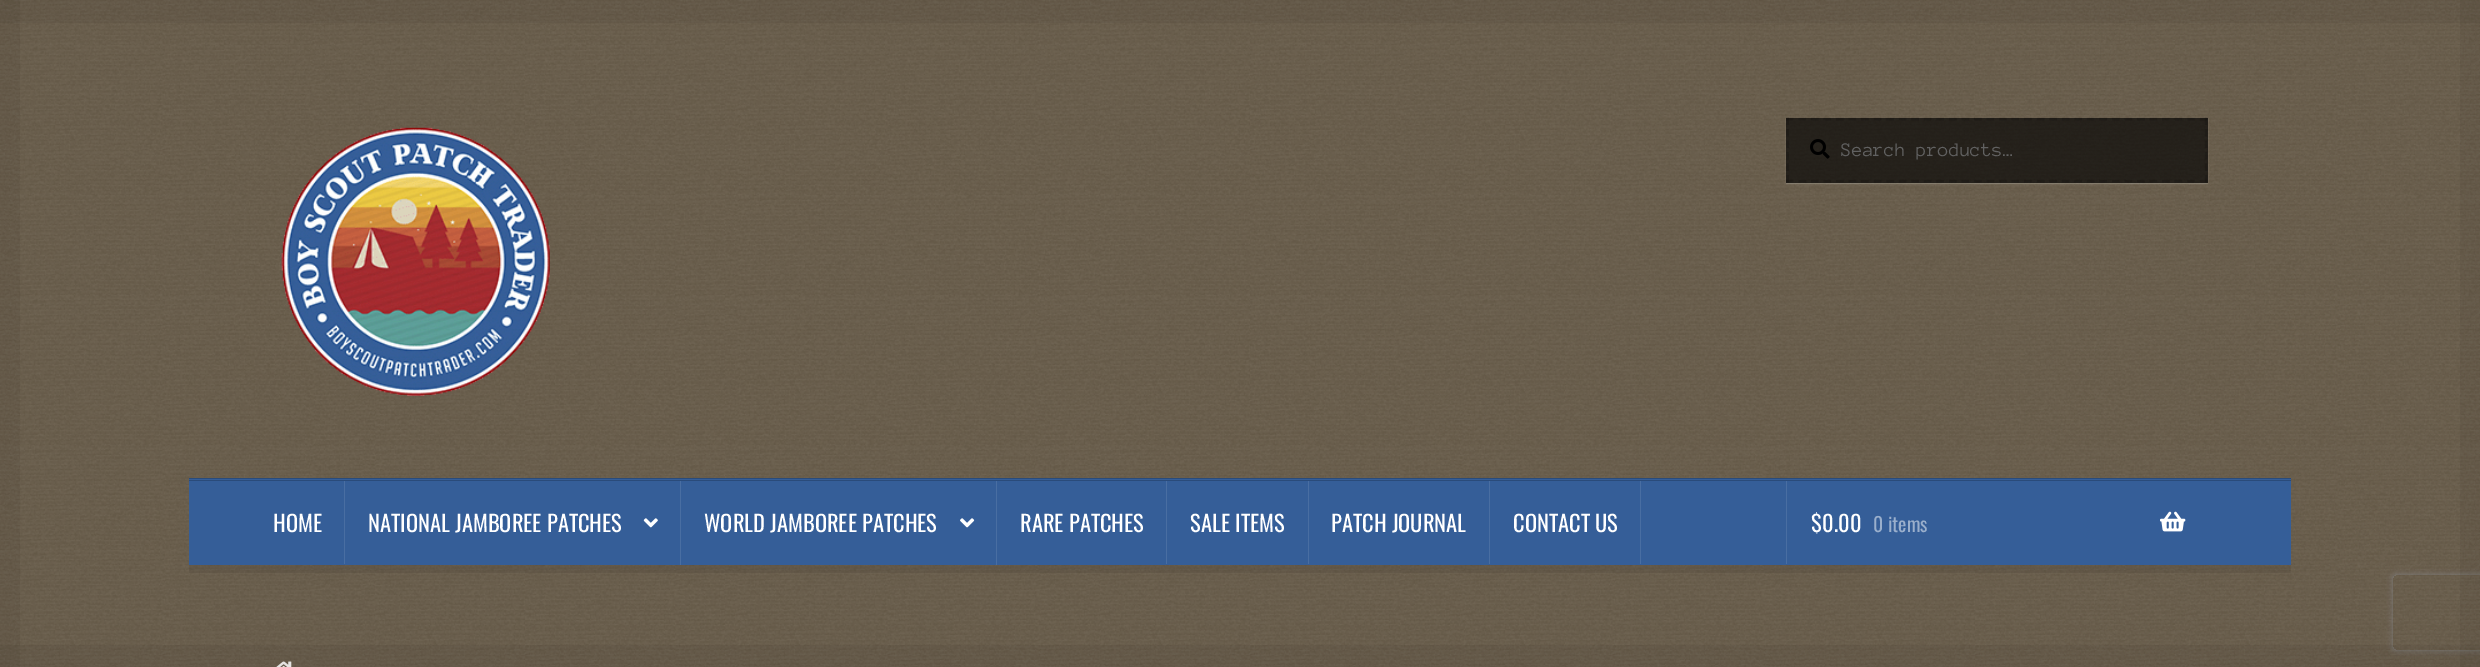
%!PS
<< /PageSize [2480 667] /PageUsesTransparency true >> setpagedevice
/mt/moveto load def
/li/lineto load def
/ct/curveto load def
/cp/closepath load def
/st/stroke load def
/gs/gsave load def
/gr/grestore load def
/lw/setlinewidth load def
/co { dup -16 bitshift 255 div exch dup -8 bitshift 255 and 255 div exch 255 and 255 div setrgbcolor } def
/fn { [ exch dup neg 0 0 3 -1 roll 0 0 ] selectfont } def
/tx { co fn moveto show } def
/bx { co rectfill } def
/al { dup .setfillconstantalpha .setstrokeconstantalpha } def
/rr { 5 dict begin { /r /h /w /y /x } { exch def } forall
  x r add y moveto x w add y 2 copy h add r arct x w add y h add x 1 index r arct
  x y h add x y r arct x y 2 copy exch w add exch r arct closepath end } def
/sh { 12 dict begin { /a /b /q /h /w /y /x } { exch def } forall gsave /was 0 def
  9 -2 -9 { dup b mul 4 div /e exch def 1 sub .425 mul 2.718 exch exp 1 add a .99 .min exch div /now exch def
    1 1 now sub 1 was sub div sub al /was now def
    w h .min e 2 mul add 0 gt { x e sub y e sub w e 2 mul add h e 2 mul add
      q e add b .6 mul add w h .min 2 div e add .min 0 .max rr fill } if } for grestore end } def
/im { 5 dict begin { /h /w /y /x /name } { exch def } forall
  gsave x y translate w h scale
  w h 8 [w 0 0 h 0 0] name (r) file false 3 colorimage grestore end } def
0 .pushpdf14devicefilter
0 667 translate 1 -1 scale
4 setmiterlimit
0 0 2480 667 16#FFFFFF bx
(media/1.raw) 0 0 2480 667 im
0.05 al
0 0 20 667 16#000000 bx
gs
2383 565 mt 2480 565 li 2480 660 li 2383 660 li cp 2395.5 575 mt 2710.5 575 li 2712 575 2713 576 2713 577.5 ct 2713 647.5 li 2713 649 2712 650 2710.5 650 ct 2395.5 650 li 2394 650 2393 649 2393 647.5 ct 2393 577.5 li 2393 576 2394 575 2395.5 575 ct cp eoclip newpath
1 al
16#808080 co
2393 575 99 75 2.5 3 1 sh
gr
2460 0 20 667 16#000000 bx
0 0 2480 23 16#000000 bx
1 al
(media/2.raw) 281 127 269 269 im
gs
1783 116 mt 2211 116 li 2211 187 li 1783 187 li cp 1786 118 mt 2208 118 li 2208 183 li 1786 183 li cp eoclip newpath
16#FFFFFF co
1786 119 422 65 0 .5 .2 sh
gr
0.65 al
1786 118 422 65 16#000000 bx
1 al
(media/3.raw) 1810 139 20 20 im
0.15 al
2.5 lw
[7.5 5.04] 0 setdash
1786 119 mt 2207.5 119 li st
[7.5 4] 0 setdash
2206 117.5 mt 2206 182.5 li st
[7.5 5.04] 0 setdash
1786 181 mt 2207.5 181 li st
[7.5 4] 0 setdash
1787.5 117.5 mt 1787.5 182.5 li st
0.07 al
189 565 2102 8 16#000000 bx
1 al
189 479 2102 86 16#355E98 bx
189 478 2102 1 16#2A4B7A bx
189 480 2102 1 16#2A4B7A bx
344 481 1 83 16#496EA2 bx
680 481 1 84 16#496EA2 bx
(media/4.raw) 643 518 15 10 im
996 481 1 84 16#496EA2 bx
(media/5.raw) 960 518 15 10 im
1166 481 1 83 16#496EA2 bx
1308 481 1 83 16#496EA2 bx
1489 481 1 83 16#496EA2 bx
1640 481 1 83 16#496EA2 bx
1786 481 1 83 16#496EA2 bx
(media/6.raw) 2160 511 26 21 im
(media/7.raw) 276 661 16 6 im
0.05 al
0 645 2480 22 16#000000 bx
1 al
(Search products…) 1841 156 /AnonymousPro-Regular 19.75 16#616161 tx
(HOME) 273 532 /Oswald-Regular 22.5 16#FFFFFF tx
(NATIONAL JAMBOREE PATCHES) 368 532 /Oswald-Regular 22.5 16#FFFFFF tx
(WORLD JAMBOREE PATCHES) 704 532 /Oswald-Regular 22.5 16#FFFFFF tx
(RARE PATCHES) 1020 532 /Oswald-Regular 22.5 16#FFFFFF tx
(SALE ITEMS) 1190 532 /Oswald-Regular 22.5 16#FFFFFF tx
(PATCH JOURNAL) 1331 532 /Oswald-Regular 22.5 16#FFFFFF tx
(CONTACT US) 1513 532 /Oswald-Regular 22.5 16#FFFFFF tx
($0.00) 1811 532 /Oswald-Regular 22.5 16#FFFFFF tx
(0 items) 1873 532 /Oswald-Regular 19.75 16#9AAFCC tx
.poppdf14devicefilter showpage
